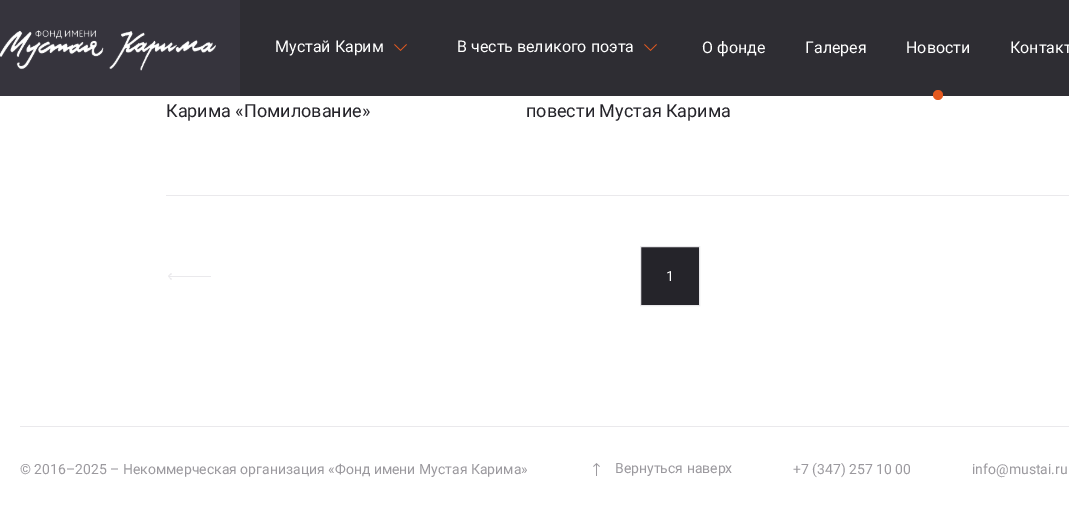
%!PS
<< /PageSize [1069 510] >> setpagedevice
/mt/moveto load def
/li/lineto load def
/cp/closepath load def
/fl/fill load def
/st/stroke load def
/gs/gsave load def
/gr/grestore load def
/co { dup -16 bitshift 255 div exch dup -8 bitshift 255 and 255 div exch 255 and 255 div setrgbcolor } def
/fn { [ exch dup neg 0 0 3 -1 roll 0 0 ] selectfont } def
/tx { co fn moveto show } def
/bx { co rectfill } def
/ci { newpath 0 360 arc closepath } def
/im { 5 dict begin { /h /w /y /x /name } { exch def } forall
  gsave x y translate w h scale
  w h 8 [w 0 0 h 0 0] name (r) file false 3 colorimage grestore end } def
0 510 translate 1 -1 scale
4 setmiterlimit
0 0 1069 510 16#FFFFFF bx
240 0 829 96 16#2E2D33 bx
0 0 240 96 16#36343D bx
(media/1.raw) 0 30 216 41 im
(media/2.raw) 394 44 13 7 im
(media/2.raw) 644 44 13 7 im
16#E4591F co
938 95 5 ci fl
166 195 903 1 16#EAE9EC bx
171 273 mt 172 274 li 169 276 li 211 276 li 211 277 li 169 277 li 172 279 li 171 280 li 168 276 li cp fl
16#25242A co
640.5 246.5 mt 699.5 246.5 li 699.5 305.5 li 640.5 305.5 li cp gs fl gr
16#EAE9EC co
st
20 426 1049 1 16#EAE9EC bx
(media/3.raw) 593 463 7 13 im
(Мустай Карим) 275 52 /Roboto-Regular 16 16#FFFFFF tx
(В честь великого поэта) 457 52 /Roboto-Regular 16 16#FFFFFF tx
(О фонде) 702 53 /Roboto-Regular 16 16#FFFFFF tx
(Галерея) 805 53 /Roboto-Regular 16 16#FFFFFF tx
(Новости) 906 53 /Roboto-Regular 16 16#FFFFFF tx
(Контакт) 1010 53 /Roboto-Regular 16 16#FFFFFF tx
(Карима «Помилование») 166 117 /Roboto-Regular 18 16#25242A tx
(повести Мустая Карима) 526 117 /Roboto-Regular 18 16#25242A tx
(1) 666 281 /Roboto-Regular 14 16#FFFFFF tx
(© 2016–2025 – Некоммерческая организация «Фонд имени Мустая Карима») 20 474 /Roboto-Regular 14 16#9B999E tx
(Вернуться наверх) 615 473 /Roboto-Regular 14 16#9B999E tx
(+7 \(347\) 257 10 00) 793 474 /Roboto-Regular 14 16#9B999E tx
(info@mustai.ru) 972 474 /Roboto-Regular 14 16#9B999E tx
showpage
